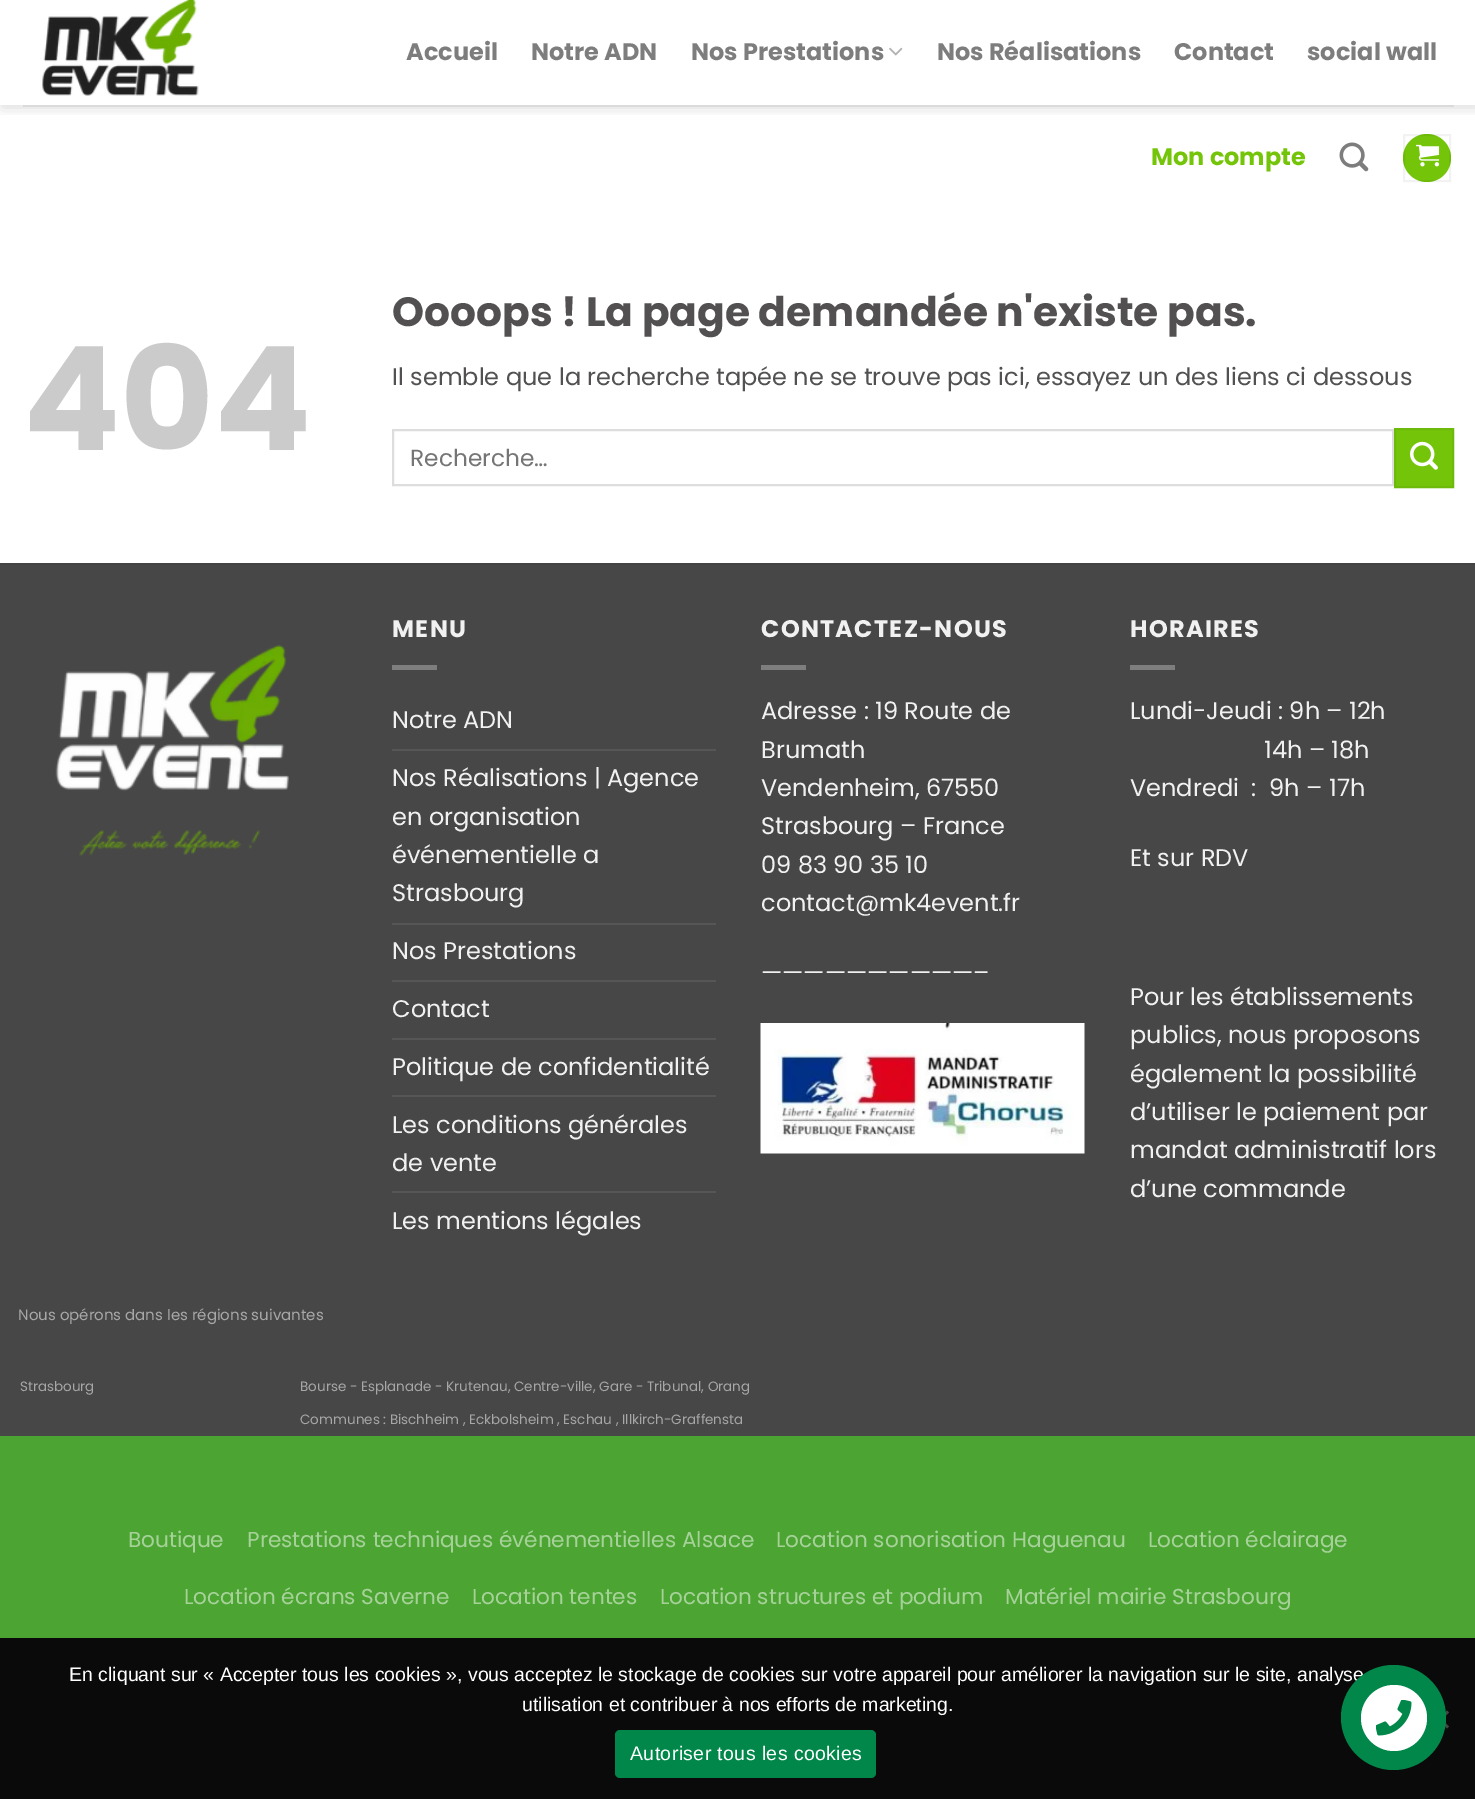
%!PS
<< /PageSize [1475 1799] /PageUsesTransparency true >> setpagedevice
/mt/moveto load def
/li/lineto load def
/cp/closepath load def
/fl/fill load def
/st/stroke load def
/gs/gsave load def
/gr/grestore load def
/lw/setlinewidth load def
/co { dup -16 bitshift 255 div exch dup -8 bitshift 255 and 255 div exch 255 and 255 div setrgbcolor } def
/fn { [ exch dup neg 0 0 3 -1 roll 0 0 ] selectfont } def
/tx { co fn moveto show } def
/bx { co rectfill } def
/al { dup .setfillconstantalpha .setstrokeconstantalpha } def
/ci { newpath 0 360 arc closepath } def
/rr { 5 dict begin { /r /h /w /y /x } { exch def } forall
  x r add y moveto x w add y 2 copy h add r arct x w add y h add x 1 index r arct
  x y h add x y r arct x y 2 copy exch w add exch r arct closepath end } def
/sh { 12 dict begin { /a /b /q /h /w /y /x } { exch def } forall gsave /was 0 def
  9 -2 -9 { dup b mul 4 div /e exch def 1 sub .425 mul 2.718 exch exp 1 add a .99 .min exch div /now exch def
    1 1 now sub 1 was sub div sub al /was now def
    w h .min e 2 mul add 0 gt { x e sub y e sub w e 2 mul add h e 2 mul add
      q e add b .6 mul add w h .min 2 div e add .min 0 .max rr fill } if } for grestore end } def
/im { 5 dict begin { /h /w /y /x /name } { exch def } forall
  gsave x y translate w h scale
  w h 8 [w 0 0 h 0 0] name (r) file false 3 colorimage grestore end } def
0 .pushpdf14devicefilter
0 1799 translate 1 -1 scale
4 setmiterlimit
0 0 1475 1799 16#FFFFFF bx
gs
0 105 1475 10 rectclip
16#000000 co
2 2 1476 105 0 7.5 .15 sh
gr
(media/1.raw) 42 0 157 96 im
(media/2.raw) 889 47 14 9 im
(media/3.raw) 1339 142 30 30 im
16#74C40A co
1427 158 24 ci fl
0.05 al
16#000000 co
2 lw
1404 135 46 46 rectstroke
1 al
(media/4.raw) 1416 144 24 23 im
23 105 1431 2 16#DBDADA bx
16#DDDDDD co
393 430 1000 55 rectstroke
16#74C40A co
1395 429 mt 1453 429 li 1453 487 li 1395 487 li cp gs fl gr
16#6EBA0A co
st
(media/5.raw) 1410 441 28 29 im
0 565 1475 871 16#474747 bx
0 563 1475 2 16#434343 bx
(media/6.raw) 55 645 234 211 im
392 665 45 5 16#7E7E7E bx
392 749 324 2 16#565656 bx
392 923 324 2 16#565656 bx
392 980 324 2 16#565656 bx
392 1038 324 2 16#565656 bx
392 1095 324 2 16#565656 bx
392 1191 324 2 16#565656 bx
761 665 45 5 16#7E7E7E bx
(media/7.raw) 760 1023 325 131 im
1130 665 45 5 16#7E7E7E bx
0 1436 1475 202 16#4CA533 bx
0 1638 1475 161 16#0A0A0A bx
16#454545 co
1447 1710.5 mt 1449 1712.5 li 1433 1728.5 li 1431 1726.5 li cp fl
1431 1712.5 mt 1433 1710.5 li 1449 1726.5 li 1447 1728.5 li cp fl
16#008749 co
615 1730 261 48 5 rr fl
(Accueil) 406 60 /Poppins-Bold 24 16#7D7D7D tx
(Notre ADN) 531 60 /Poppins-Bold 24 16#7D7D7D tx
(Nos Prestations) 691 60 /Poppins-Bold 24 16#7D7D7D tx
(Nos Réalisations) 937 60 /Poppins-Bold 24 16#7D7D7D tx
(Contact) 1174 60 /Poppins-Bold 24 16#7D7D7D tx
(social wall) 1307 60 /Poppins-Bold 24 16#7D7D7D tx
(Mon compte) 1151 165 /Poppins-Bold 24 16#74C40A tx
(404) 23 450 /Poppins-Bold 144 16#CBCBCB tx
(Oooops ! La page demandée n'existe pas.) 392 326 /Poppins-Bold 40.8 16#525050 tx
(Il semble que la recherche tapée ne se trouve pas ici, essayez un des liens ci dessous) 392 385 /Poppins-Regular 24 16#525050 tx
(Recherche…) 410 466 /Poppins-Regular 23.25 16#757575 tx
/Poppins-Bold 24 fn
16#F1F1F1 co
392 637 mt 1.25 0 (MENU) ashow
(Notre ADN) 392 728 /Poppins-Regular 24 16#F1F1F1 tx
(Nos Réalisations | Agence) 392 786 /Poppins-Regular 24 16#F1F1F1 tx
(en organisation) 392 825 /Poppins-Regular 24 16#F1F1F1 tx
(événementielle a) 392 863 /Poppins-Regular 24 16#F1F1F1 tx
(Strasbourg) 392 901 /Poppins-Regular 24 16#F1F1F1 tx
(Nos Prestations) 392 959 /Poppins-Regular 24 16#F1F1F1 tx
(Contact) 392 1017 /Poppins-Regular 24 16#F1F1F1 tx
(Politique de confidentialité) 392 1075 /Poppins-Regular 24 16#F1F1F1 tx
(Les conditions générales) 392 1133 /Poppins-Regular 24 16#F1F1F1 tx
(de vente) 392 1171 /Poppins-Regular 24 16#F1F1F1 tx
(Les mentions légales) 392 1229 /Poppins-Regular 24 16#F1F1F1 tx
/Poppins-Bold 24 fn
761 637 mt 1.25 0 (CONTACTEZ-NOUS) ashow
(Adresse : 19 Route de) 761 719 /Poppins-Regular 24 16#F1F1F1 tx
(Brumath) 761 758 /Poppins-Regular 24 16#F1F1F1 tx
(Vendenheim, 67550) 761 796 /Poppins-Regular 24 16#F1F1F1 tx
(Strasbourg – France) 761 834 /Poppins-Regular 24 16#F1F1F1 tx
(09 83 90 35 10) 761 873 /Poppins-Regular 24 16#F1F1F1 tx
(contact@mk4event.fr) 761 911 /Poppins-Regular 24 16#F1F1F1 tx
(——————————–) 761 981 /Poppins-Regular 24 16#F1F1F1 tx
/Poppins-Bold 24 fn
1130 637 mt 1.25 0 (HORAIRES) ashow
(Lundi-Jeudi : 9h – 12h) 1130 719 /Poppins-Regular 24 16#F1F1F1 tx
(14h – 18h) 1264 758 /Poppins-Regular 24 16#F1F1F1 tx
(Vendredi  :  9h – 17h) 1130 796 /Poppins-Regular 24 16#F1F1F1 tx
(Et sur RDV) 1130 866 /Poppins-Regular 24 16#F1F1F1 tx
(Pour les établissements) 1130 1005 /Poppins-Regular 24 16#F1F1F1 tx
(publics, nous proposons) 1130 1043 /Poppins-Regular 24 16#F1F1F1 tx
(également la possibilité) 1130 1082 /Poppins-Regular 24 16#F1F1F1 tx
(d’utiliser le paiement par) 1130 1120 /Poppins-Regular 24 16#F1F1F1 tx
(mandat administratif lors) 1130 1158 /Poppins-Regular 24 16#F1F1F1 tx
(d’une commande) 1130 1197 /Poppins-Regular 24 16#F1F1F1 tx
(Nous opérons dans les régions suivantes) 18 1320 /Poppins-Regular 15 16#A7A7A7 tx
(Strasbourg) 20 1391 /Poppins-Regular 13.5 16#A7A7A7 tx
(Bourse - Esplanade - Krutenau, Centre-ville, Gare - Tribunal, Orang) 300 1391 /Poppins-Regular 13.5 16#A7A7A7 tx
(Communes : Bischheim , Eckbolsheim , Eschau , Illkirch-Graffensta) 300 1424 /Poppins-Regular 13.5 16#A7A7A7 tx
(Boutique) 128 1547 /Poppins-Regular 21.6 16#A6D299 tx
(Prestations techniques événementielles Alsace) 247 1547 /Poppins-Regular 21.6 16#A6D299 tx
(Location sonorisation Haguenau) 776 1547 /Poppins-Regular 21.6 16#A6D299 tx
(Location éclairage) 1148 1547 /Poppins-Regular 21.6 16#A6D299 tx
(Location écrans Saverne) 184 1604 /Poppins-Regular 21.6 16#A6D299 tx
(Location tentes) 472 1604 /Poppins-Regular 21.6 16#A6D299 tx
(Location structures et podium) 660 1604 /Poppins-Regular 21.6 16#A6D299 tx
(Matériel mairie Strasbourg) 1005 1604 /Poppins-Regular 21.6 16#A6D299 tx
(En cliquant sur « Accepter tous les cookies », vous acceptez le stockage de cookies sur votre appareil pour améliorer la navigation sur le site, analyse) 69 1681 /LiberationSans-Regular 19.5 16#FFFFFF tx
(utilisation et contribuer à nos efforts de marketing.) 522 1711 /LiberationSans-Regular 19.5 16#FFFFFF tx
630 1760 mt .4 0 (Autoriser tous les cookies) ashow
16#008749 co
1393.5 1717.5 52.5 ci fl
16#FFFFFF co
1394 1718 33 ci fl
(media/8.raw) 1376 1700 36 36 im
.poppdf14devicefilter showpage
